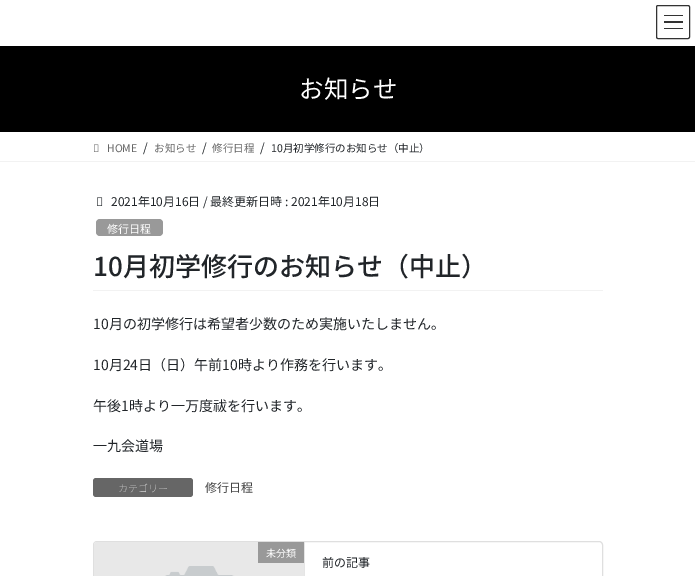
%!PS
<< /PageSize [695 576] >> setpagedevice
/fl/fill load def
/st/stroke load def
/co { dup -16 bitshift 255 div exch dup -8 bitshift 255 and 255 div exch 255 and 255 div setrgbcolor } def
/fn { [ exch dup neg 0 0 3 -1 roll 0 0 ] selectfont } def
/tx { co fn moveto show } def
/bx { co rectfill } def
/rr { 5 dict begin { /r /h /w /y /x } { exch def } forall
  x r add y moveto x w add y 2 copy h add r arct x w add y h add x 1 index r arct
  x y h add x y r arct x y 2 copy exch w add exch r arct closepath end } def
/im { 5 dict begin { /h /w /y /x /name } { exch def } forall
  gsave x y translate w h scale
  w h 8 [w 0 0 h 0 0] name (r) file false 3 colorimage grestore end } def
0 576 translate 1 -1 scale
4 setmiterlimit
0 0 695 576 16#FFFFFF bx
664 15 19 1 16#333333 bx
664 21 19 2 16#333333 bx
664 28 19 1 16#333333 bx
656.5 5.5 33 33 1.5 rr st
0 46 695 86 16#000000 bx
0 161 695 1 16#F2F2F2 bx
(media/1.raw) 94 144 5 8 im
93 290 510 1 16#F2F2F2 bx
(media/2.raw) 97 197 6 9 im
16#999999 co
96 219 67 17 4 rr fl
16#666666 co
93 478 100 19 3 rr fl
16#DFDFDF co
93.5 541.5 509 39 3.5 rr st
(media/3.raw) 94 542 210 34 im
304 542 1 34 16#E5E5E5 bx
258 542 46 21 16#999999 bx
(お知らせ) 299 98 /NotoSansJP-Regular 24.5 16#FFFFFF tx
(HOME) 107 152 /NotoSansJP-Regular 10.5 16#666666 tx
(/) 143 152 /NotoSansJP-Regular 12 16#212529 tx
(お知らせ) 154 152 /NotoSansJP-Regular 10.5 16#666666 tx
(/) 202 152 /NotoSansJP-Regular 12 16#212529 tx
(修行日程) 212 152 /NotoSansJP-Regular 10.5 16#666666 tx
(/) 260 152 /NotoSansJP-Regular 12 16#212529 tx
(10月初学修行のお知らせ（中止）) 271 152 /NotoSansJP-Regular 10.5 16#212529 tx
(2021年10月16日) 111 206 /NotoSansJP-Regular 12 16#212529 tx
(/ 最終更新日時 : 2021年10月18日) 203 206 /NotoSansJP-Regular 12 16#212529 tx
(修行日程) 107 233 /NotoSansJP-Regular 11 16#FFFFFF tx
(10月初学修行のお知らせ（中止）) 93 276 /NotoSansJP-Medium 26 16#212529 tx
(10月の初学修行は希望者少数のため実施いたしません。) 93 329 /NotoSansJP-Regular 14 16#212529 tx
(10月24日（日）午前10時より作務を行います。) 93 370 /NotoSansJP-Regular 14 16#212529 tx
(午後1時より一万度祓を行います。) 93 411 /NotoSansJP-Regular 14 16#212529 tx
(一九会道場) 93 451 /NotoSansJP-Regular 14 16#212529 tx
(カテゴリー) 118 492 /NotoSansJP-Thin 10 16#FFFFFF tx
(修行日程) 205 492 /NotoSansJP-Regular 12 16#464646 tx
(未分類) 266 557 /NotoSansJP-Regular 10 16#FFFFFF tx
(前の記事) 322 567 /NotoSansJP-Regular 12 16#212529 tx
showpage
